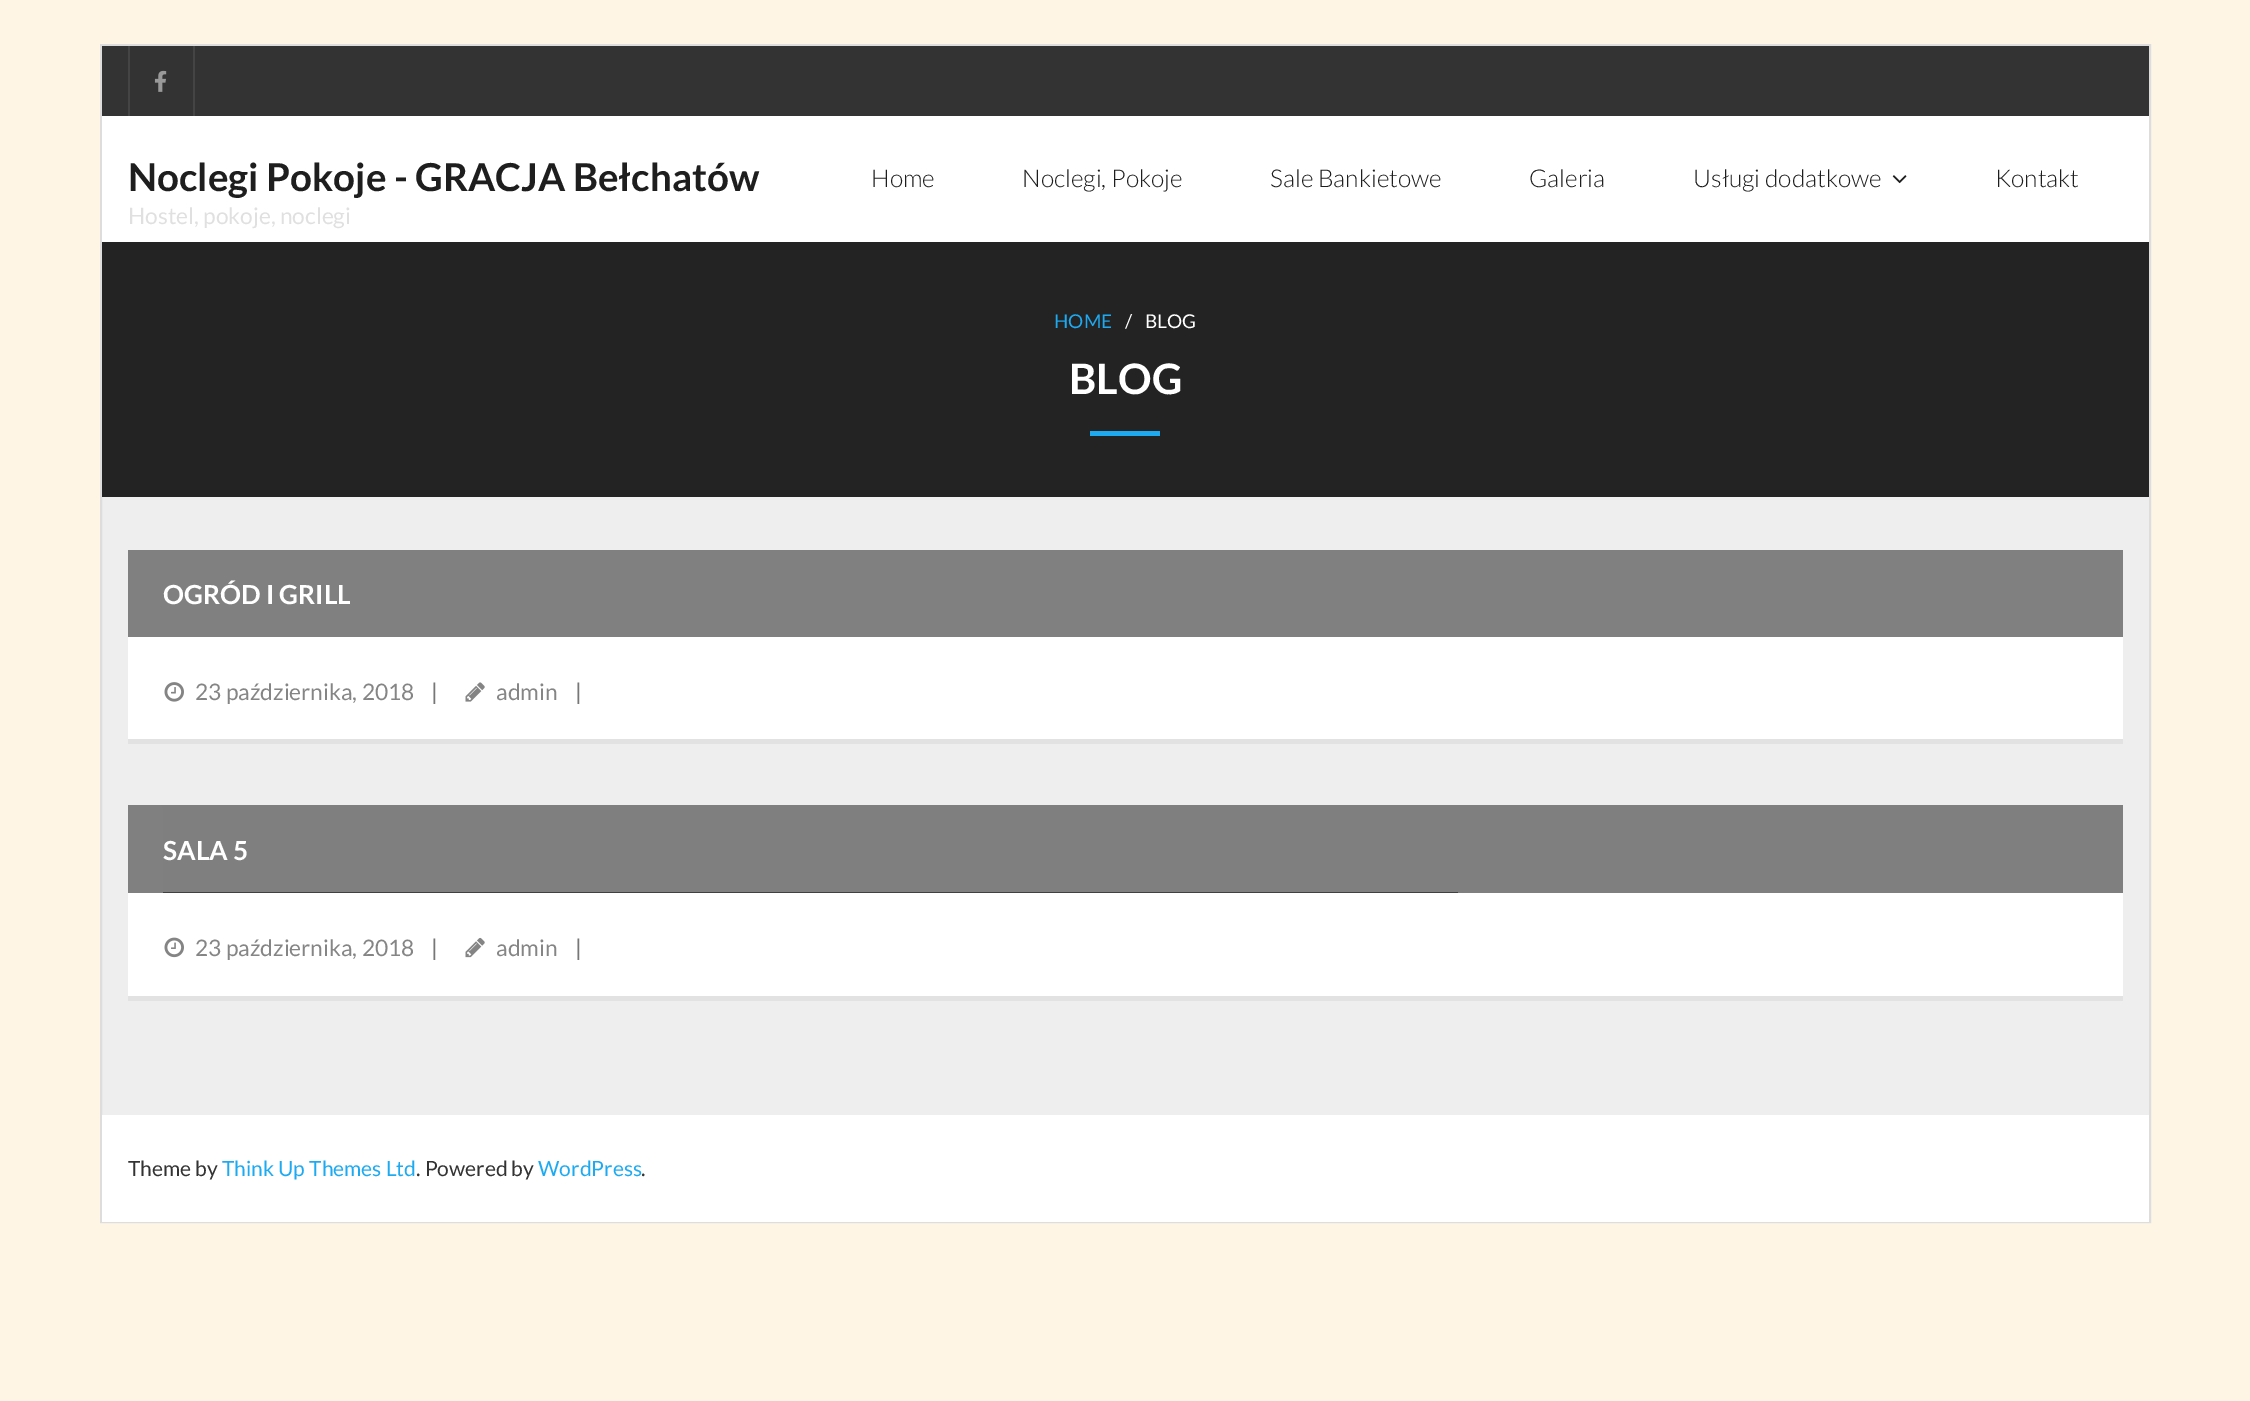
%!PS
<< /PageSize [2250 1401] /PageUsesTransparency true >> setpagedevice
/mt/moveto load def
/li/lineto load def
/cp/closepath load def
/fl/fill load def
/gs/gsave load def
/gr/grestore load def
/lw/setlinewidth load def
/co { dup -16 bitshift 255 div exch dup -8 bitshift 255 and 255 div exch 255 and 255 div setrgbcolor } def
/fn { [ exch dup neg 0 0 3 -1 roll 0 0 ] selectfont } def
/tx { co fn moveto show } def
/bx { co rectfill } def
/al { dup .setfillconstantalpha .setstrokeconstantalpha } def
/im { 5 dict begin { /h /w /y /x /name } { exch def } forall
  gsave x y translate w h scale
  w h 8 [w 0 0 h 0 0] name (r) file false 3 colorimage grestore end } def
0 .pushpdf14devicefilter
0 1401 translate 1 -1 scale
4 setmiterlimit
0 0 2250 1401 16#FFF5E5 bx
102 497 2047 618 16#EEEEEE bx
16#DDDDDD co
2 lw
101 45 2049 1177 rectstroke
102 46 2047 70 16#333333 bx
193 46 2 70 16#444444 bx
128 46 2 70 16#444444 bx
(media/1.raw) 154 70 13 22 im
102 116 2047 126 16#FFFFFF bx
(media/2.raw) 1892 175 15 9 im
102 242 2047 255 16#232323 bx
1090 431 70 5 16#1EAAF1 bx
128 637 1995 102 16#FFFFFF bx
128 739 1995 5 16#E2E2E2 bx
128 550 1995 87 16#808080 bx
(media/3.raw) 164 682 20 20 im
(media/4.raw) 465 682 20 20 im
128 805 1995 191 16#FFFFFF bx
128 996 1995 5 16#E2E2E2 bx
gs
128 805 1995 257 rectclip
16#808080 co
-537 805 mt -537 893 li 1458 893 li 1458 892 li 163 892 li 163 805 li cp fl
gr
0.5 al
163 805 1960 88 16#000000 bx
1 al
(media/5.raw) 164 937 20 21 im
(media/6.raw) 465 937 20 21 im
102 1115 2047 107 16#FFFFFF bx
(Noclegi Pokoje - GRACJA Bełchatów) 128 191 /Lato-Bold 38.5 16#1E1E1E tx
(Hostel, pokoje, noclegi) 128 224 /Lato-Regular 22.75 16#E0E0E0 tx
(Home) 871 187 /Lato-Light 24.5 16#1E1E1E tx
(Noclegi, Pokoje) 1022 187 /Lato-Light 24.5 16#1E1E1E tx
(Sale Bankietowe) 1270 187 /Lato-Light 24.5 16#1E1E1E tx
(Galeria) 1529 187 /Lato-Light 24.5 16#1E1E1E tx
(Usługi dodatkowe) 1693 187 /Lato-Light 24.5 16#1E1E1E tx
(Kontakt) 1995 187 /Lato-Light 24.5 16#1E1E1E tx
(HOME) 1054 328 /Lato-Regular 19 16#1EAAF1 tx
(/) 1125 328 /Lato-Regular 19 16#FFFFFF tx
(BLOG) 1145 328 /Lato-Regular 19 16#FFFFFF tx
(BLOG) 1069 394 /Lato-Bold 42 16#FFFFFF tx
(OGRÓD I GRILL) 163 604 /Lato-Bold 26.25 16#FFFFFF tx
(23 października, 2018) 195 700 /Lato-Regular 22.75 16#858585 tx
(|) 431 700 /Lato-Regular 22.75 16#777777 tx
(admin) 496 700 /Lato-Regular 22.75 16#858585 tx
(|) 575 700 /Lato-Regular 22.75 16#777777 tx
(SALA 5) 163 860 /Lato-Bold 26.25 16#FFFFFF tx
(23 października, 2018) 195 956 /Lato-Regular 22.75 16#858585 tx
(|) 431 956 /Lato-Regular 22.75 16#777777 tx
(admin) 496 956 /Lato-Regular 22.75 16#858585 tx
(|) 575 956 /Lato-Regular 22.75 16#777777 tx
(Theme by) 128 1176 /Lato-Regular 21 16#333333 tx
(Think Up Themes Ltd) 222 1176 /Lato-Regular 21 16#1EAAF1 tx
(. Powered by) 416 1176 /Lato-Regular 21 16#333333 tx
(WordPress) 538 1176 /Lato-Regular 21 16#1EAAF1 tx
(.) 641 1176 /Lato-Regular 21 16#333333 tx
.poppdf14devicefilter showpage
